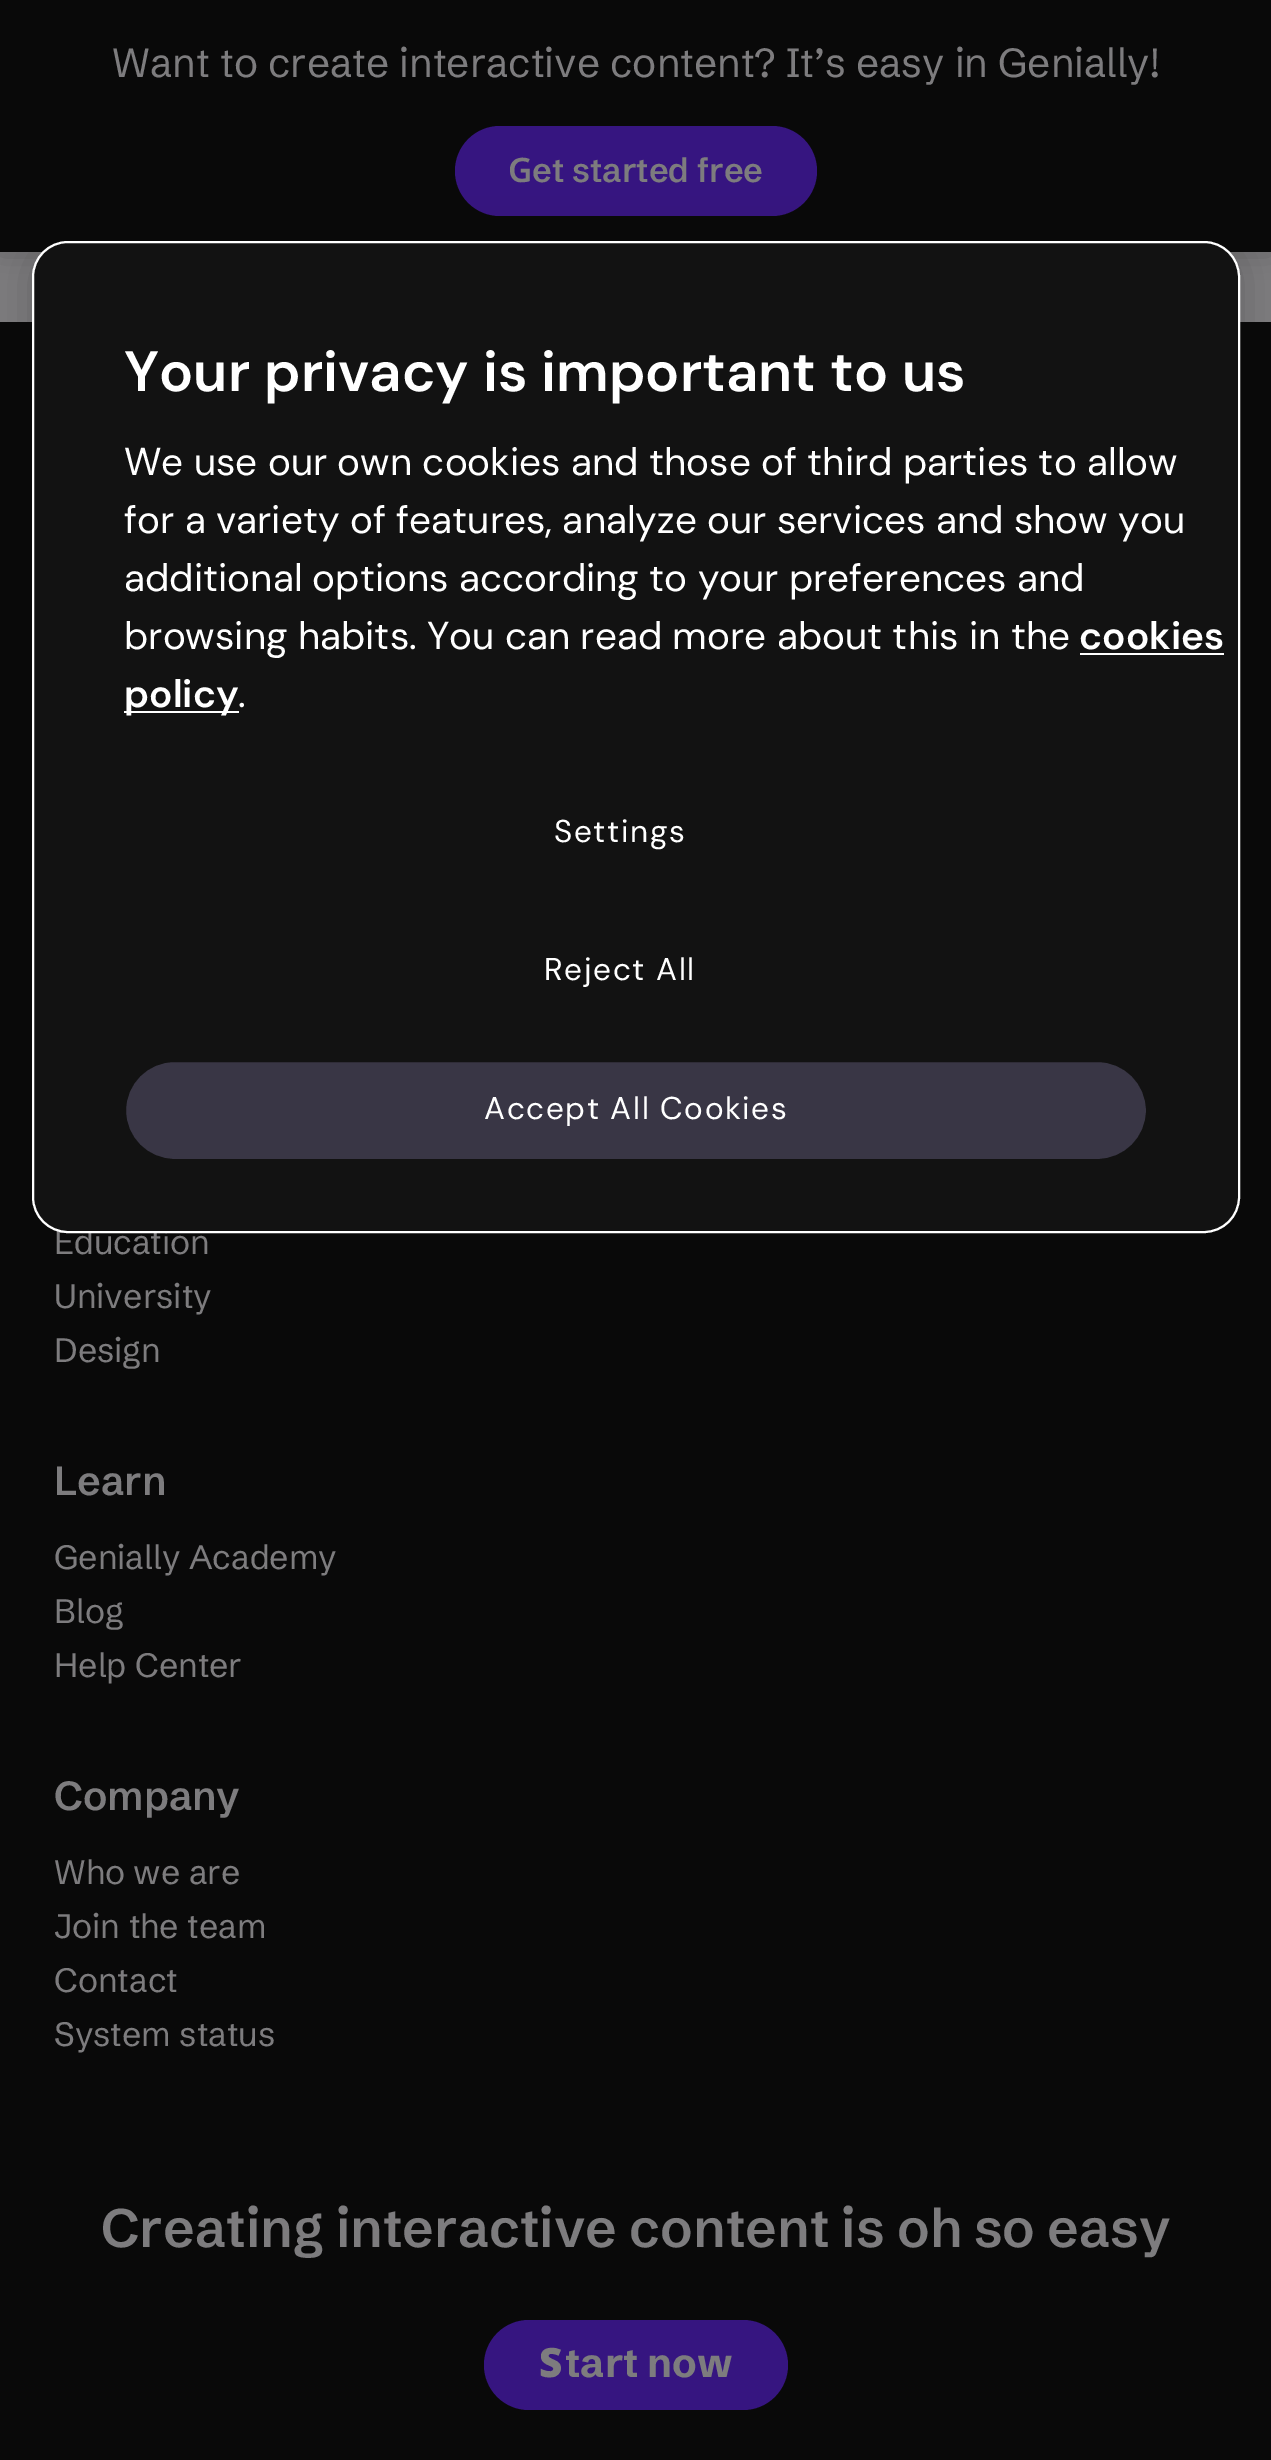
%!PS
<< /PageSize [1271 2460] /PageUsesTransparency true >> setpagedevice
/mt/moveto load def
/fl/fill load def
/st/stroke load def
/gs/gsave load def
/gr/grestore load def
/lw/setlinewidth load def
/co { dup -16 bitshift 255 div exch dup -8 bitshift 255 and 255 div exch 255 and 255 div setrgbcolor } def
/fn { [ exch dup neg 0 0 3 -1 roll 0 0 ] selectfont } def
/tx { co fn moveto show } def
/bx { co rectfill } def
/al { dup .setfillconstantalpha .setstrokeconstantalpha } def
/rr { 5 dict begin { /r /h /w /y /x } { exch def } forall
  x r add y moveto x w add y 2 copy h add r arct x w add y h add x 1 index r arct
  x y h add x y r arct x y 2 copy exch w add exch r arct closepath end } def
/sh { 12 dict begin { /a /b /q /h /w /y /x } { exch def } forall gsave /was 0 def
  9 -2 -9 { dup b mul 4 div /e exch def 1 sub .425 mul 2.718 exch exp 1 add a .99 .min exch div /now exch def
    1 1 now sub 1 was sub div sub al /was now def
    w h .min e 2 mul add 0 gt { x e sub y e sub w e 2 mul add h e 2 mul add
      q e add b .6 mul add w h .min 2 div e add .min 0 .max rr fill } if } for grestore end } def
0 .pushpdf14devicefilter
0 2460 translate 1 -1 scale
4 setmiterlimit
0 0 1271 2460 16#7D7C7E bx
16#090909 co
0 -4 1271 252 0 14.5 .3 sh
0 0 1271 252 16#090909 bx
16#361580 co
455 126 362 90 45 rr fl
0 322 1271 2138 16#090909 bx
16#361580 co
484 2320 304 90 45 rr fl
16#000000 co
32 241 1208 992 36 20 .2 sh
(Want to create interactive content? It’s easy in Genially!) 112 77 /SchibstedGrotesk-Regular 40.5 16#7D7C7E tx
(G) 508 182 /NotoSans-SemiBold 33.75 16#7D7C7E tx
(et started free) 532 182 /SchibstedGrotesk-SemiBold 33.75 16#7D7C7E tx
(Education) 54 1254 /SchibstedGrotesk-Regular 33.75 16#7D7C7E tx
(University) 54 1308 /SchibstedGrotesk-Regular 33.75 16#7D7C7E tx
(Design) 54 1362 /SchibstedGrotesk-Regular 33.75 16#7D7C7E tx
(Learn) 54 1495 /SchibstedGrotesk-SemiBold 40.5 16#7D7C7E tx
(Genially Academy) 54 1569 /SchibstedGrotesk-Regular 33.75 16#7D7C7E tx
(Blog) 54 1623 /SchibstedGrotesk-Regular 33.75 16#7D7C7E tx
(Help Center) 54 1677 /SchibstedGrotesk-Regular 33.75 16#7D7C7E tx
(Company) 54 1810 /SchibstedGrotesk-SemiBold 40.5 16#7D7C7E tx
(Who we are) 54 1884 /SchibstedGrotesk-Regular 33.75 16#7D7C7E tx
(Join the team) 54 1938 /SchibstedGrotesk-Regular 33.75 16#7D7C7E tx
(Contact) 54 1992 /SchibstedGrotesk-Regular 33.75 16#7D7C7E tx
(System status) 54 2046 /SchibstedGrotesk-Regular 33.75 16#7D7C7E tx
(Creating interactive content is oh so easy) 101 2247 /SchibstedGrotesk-SemiBold 54 16#7D7C7E tx
(S) 539 2377 /NotoSans-Black 40.5 16#7D7C7E tx
(tart now) 565 2377 /SchibstedGrotesk-Bold 40.5 16#7D7C7E tx
16#121212 co
33 242 1206 990 35 rr gs fl gr
16#FFFFFF co
2 lw
st
(Your privacy is important to us) 124 391 /DMSans-SemiBold 56.75 16#FFFFFF tx
(We use our own cookies and those of third parties to allow) 124 475 /DMSans-Regular 38.75 16#FFFFFF tx
(for a variety of features, analyze our services and show you) 124 533 /DMSans-Regular 38.75 16#FFFFFF tx
(additional options according to your preferences and) 124 591 /DMSans-Regular 38.75 16#FFFFFF tx
(browsing habits. You can read more about this in the) 124 649 /DMSans-Regular 38.75 16#FFFFFF tx
(cookies) 1079 649 /DMSans-SemiBold 38.75 16#FFFFFF tx
1080 653 144 2 16#FFFFFF bx
124 711 115 2 16#FFFFFF bx
(policy) 124 707 /DMSans-SemiBold 38.75 16#FFFFFF tx
(.) 238 707 /DMSans-Regular 38.75 16#FFFFFF tx
/DMSans-Regular 31.5 fn
554 842 mt 1.6 0 (Settings) ashow
544 980 mt 1.6 0 (Reject All) ashow
16#393645 co
125 1061 1022 99 49.5 rr gs fl gr
16#121212 co
st
16#FFFFFF co
484 1119 mt 1.6 0 (Accept All Cookies) ashow
.poppdf14devicefilter showpage
